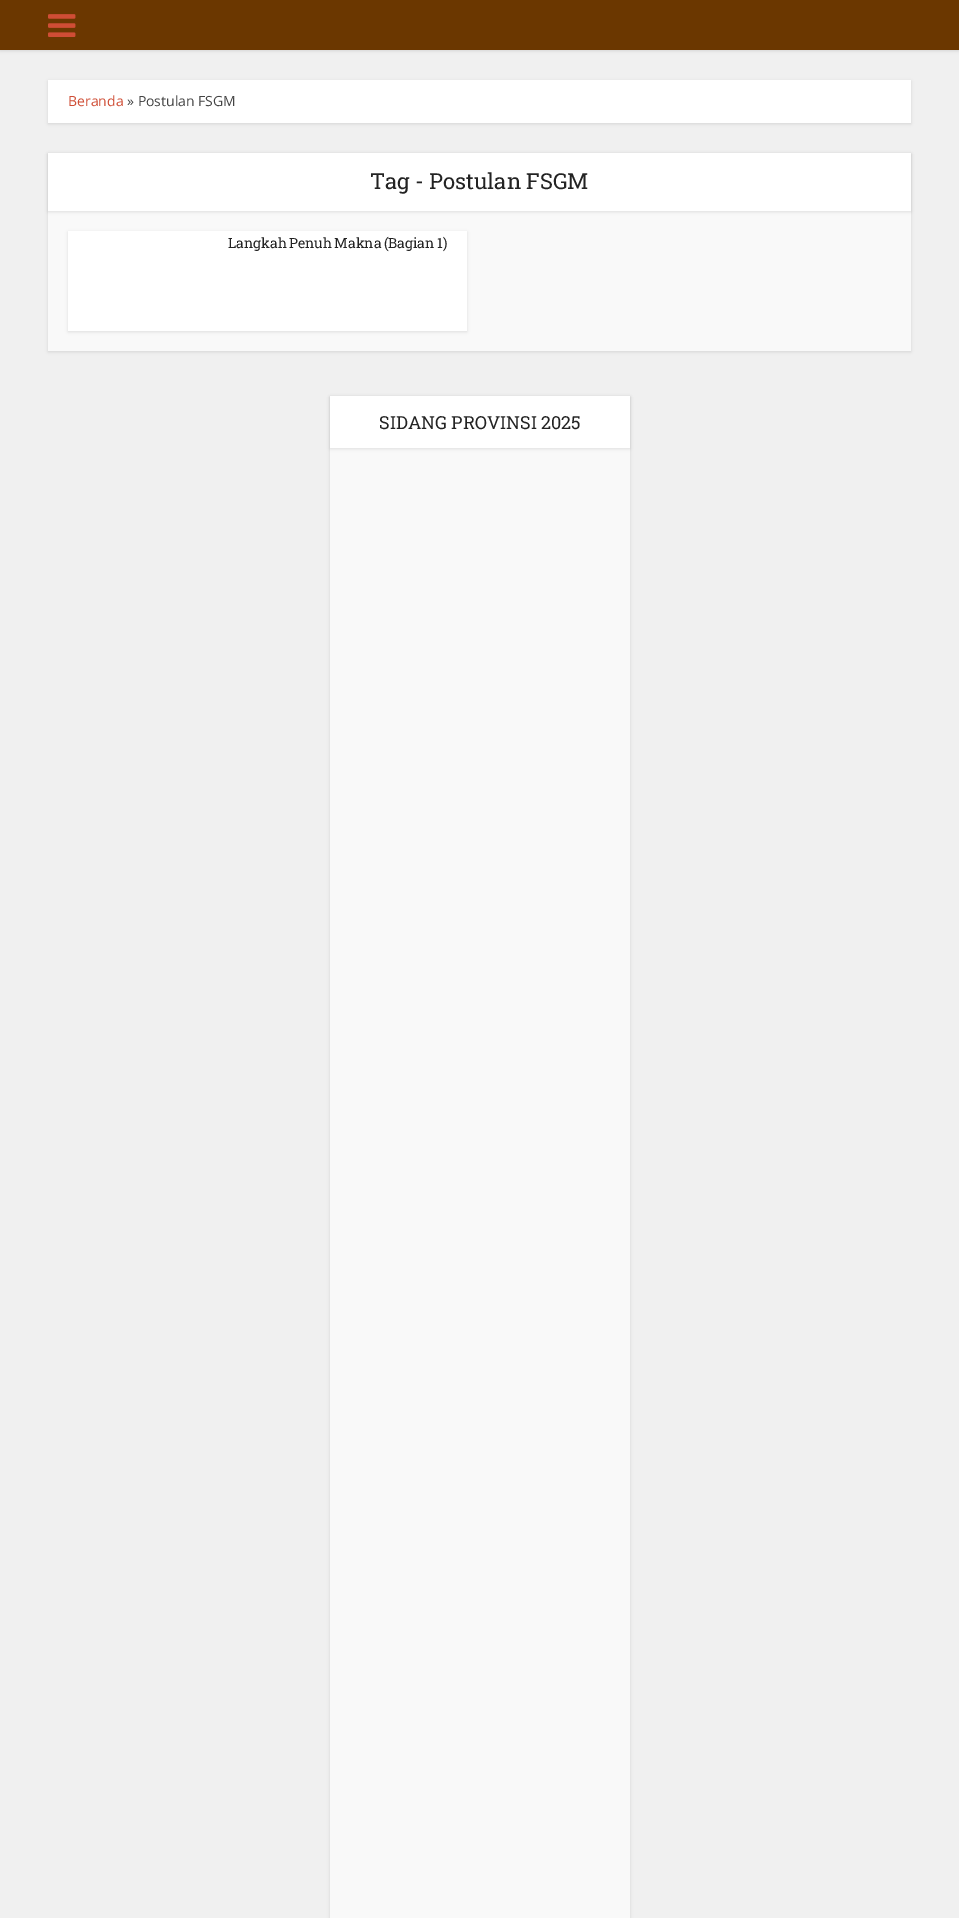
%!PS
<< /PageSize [959 1918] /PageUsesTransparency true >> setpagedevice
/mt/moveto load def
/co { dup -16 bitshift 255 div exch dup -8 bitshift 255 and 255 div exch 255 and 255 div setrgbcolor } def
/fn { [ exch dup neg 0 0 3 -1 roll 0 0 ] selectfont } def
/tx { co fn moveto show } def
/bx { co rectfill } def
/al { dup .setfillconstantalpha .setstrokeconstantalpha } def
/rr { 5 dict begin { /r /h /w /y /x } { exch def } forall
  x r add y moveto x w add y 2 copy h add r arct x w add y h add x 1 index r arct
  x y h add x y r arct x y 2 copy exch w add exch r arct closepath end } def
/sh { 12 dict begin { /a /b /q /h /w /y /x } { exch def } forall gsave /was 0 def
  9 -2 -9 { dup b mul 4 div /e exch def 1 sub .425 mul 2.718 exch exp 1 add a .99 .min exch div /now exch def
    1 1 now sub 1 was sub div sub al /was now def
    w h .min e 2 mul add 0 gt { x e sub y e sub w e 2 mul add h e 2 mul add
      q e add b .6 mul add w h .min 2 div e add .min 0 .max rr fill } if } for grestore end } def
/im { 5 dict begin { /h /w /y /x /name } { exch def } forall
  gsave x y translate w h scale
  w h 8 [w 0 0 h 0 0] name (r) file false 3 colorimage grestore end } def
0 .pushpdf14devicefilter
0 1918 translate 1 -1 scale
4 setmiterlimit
0 0 959 1918 16#F0F0F0 bx
16#000000 co
0 1 959 50 0 1.5 .1 sh
0 0 959 50 16#6B3700 bx
(media/1.raw) 48 14 28 23 im
16#000000 co
48 81 863 43 0 1.5 .1 sh
48 80 863 43 16#FFFFFF bx
16#000000 co
48 154 863 198 0 1.5 .1 sh
48 211 863 140 16#F9F9F9 bx
16#000000 co
48 154 863 58 0 1.5 .1 sh
48 153 863 58 16#FFFFFF bx
16#000000 co
68 232 399 100 0 1.5 .1 sh
68 231 399 100 16#FFFFFF bx
16#000000 co
330 397 300 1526 0 1.5 .1 sh
330 448 300 1470 16#F9F9F9 bx
16#000000 co
330 397 300 52 0 1.5 .1 sh
330 396 300 52 16#FFFFFF bx
(Beranda) 68 106 /OpenSans-Regular 14 16#CF4D35 tx
(» Postulan FSGM) 127 106 /OpenSans-Regular 14 16#444444 tx
(Tag - Postulan FSGM) 370 189 /RobotoSlab-Regular 22 16#232323 tx
/RobotoSlab-Regular 14 fn
228 248 mt -1 0 32 (Langkah Penuh Makna \(Bagian 1\)) widthshow
(SIDANG PROVINSI 2025) 379 429 /RobotoSlab-Regular 18 16#232323 tx
.poppdf14devicefilter showpage
